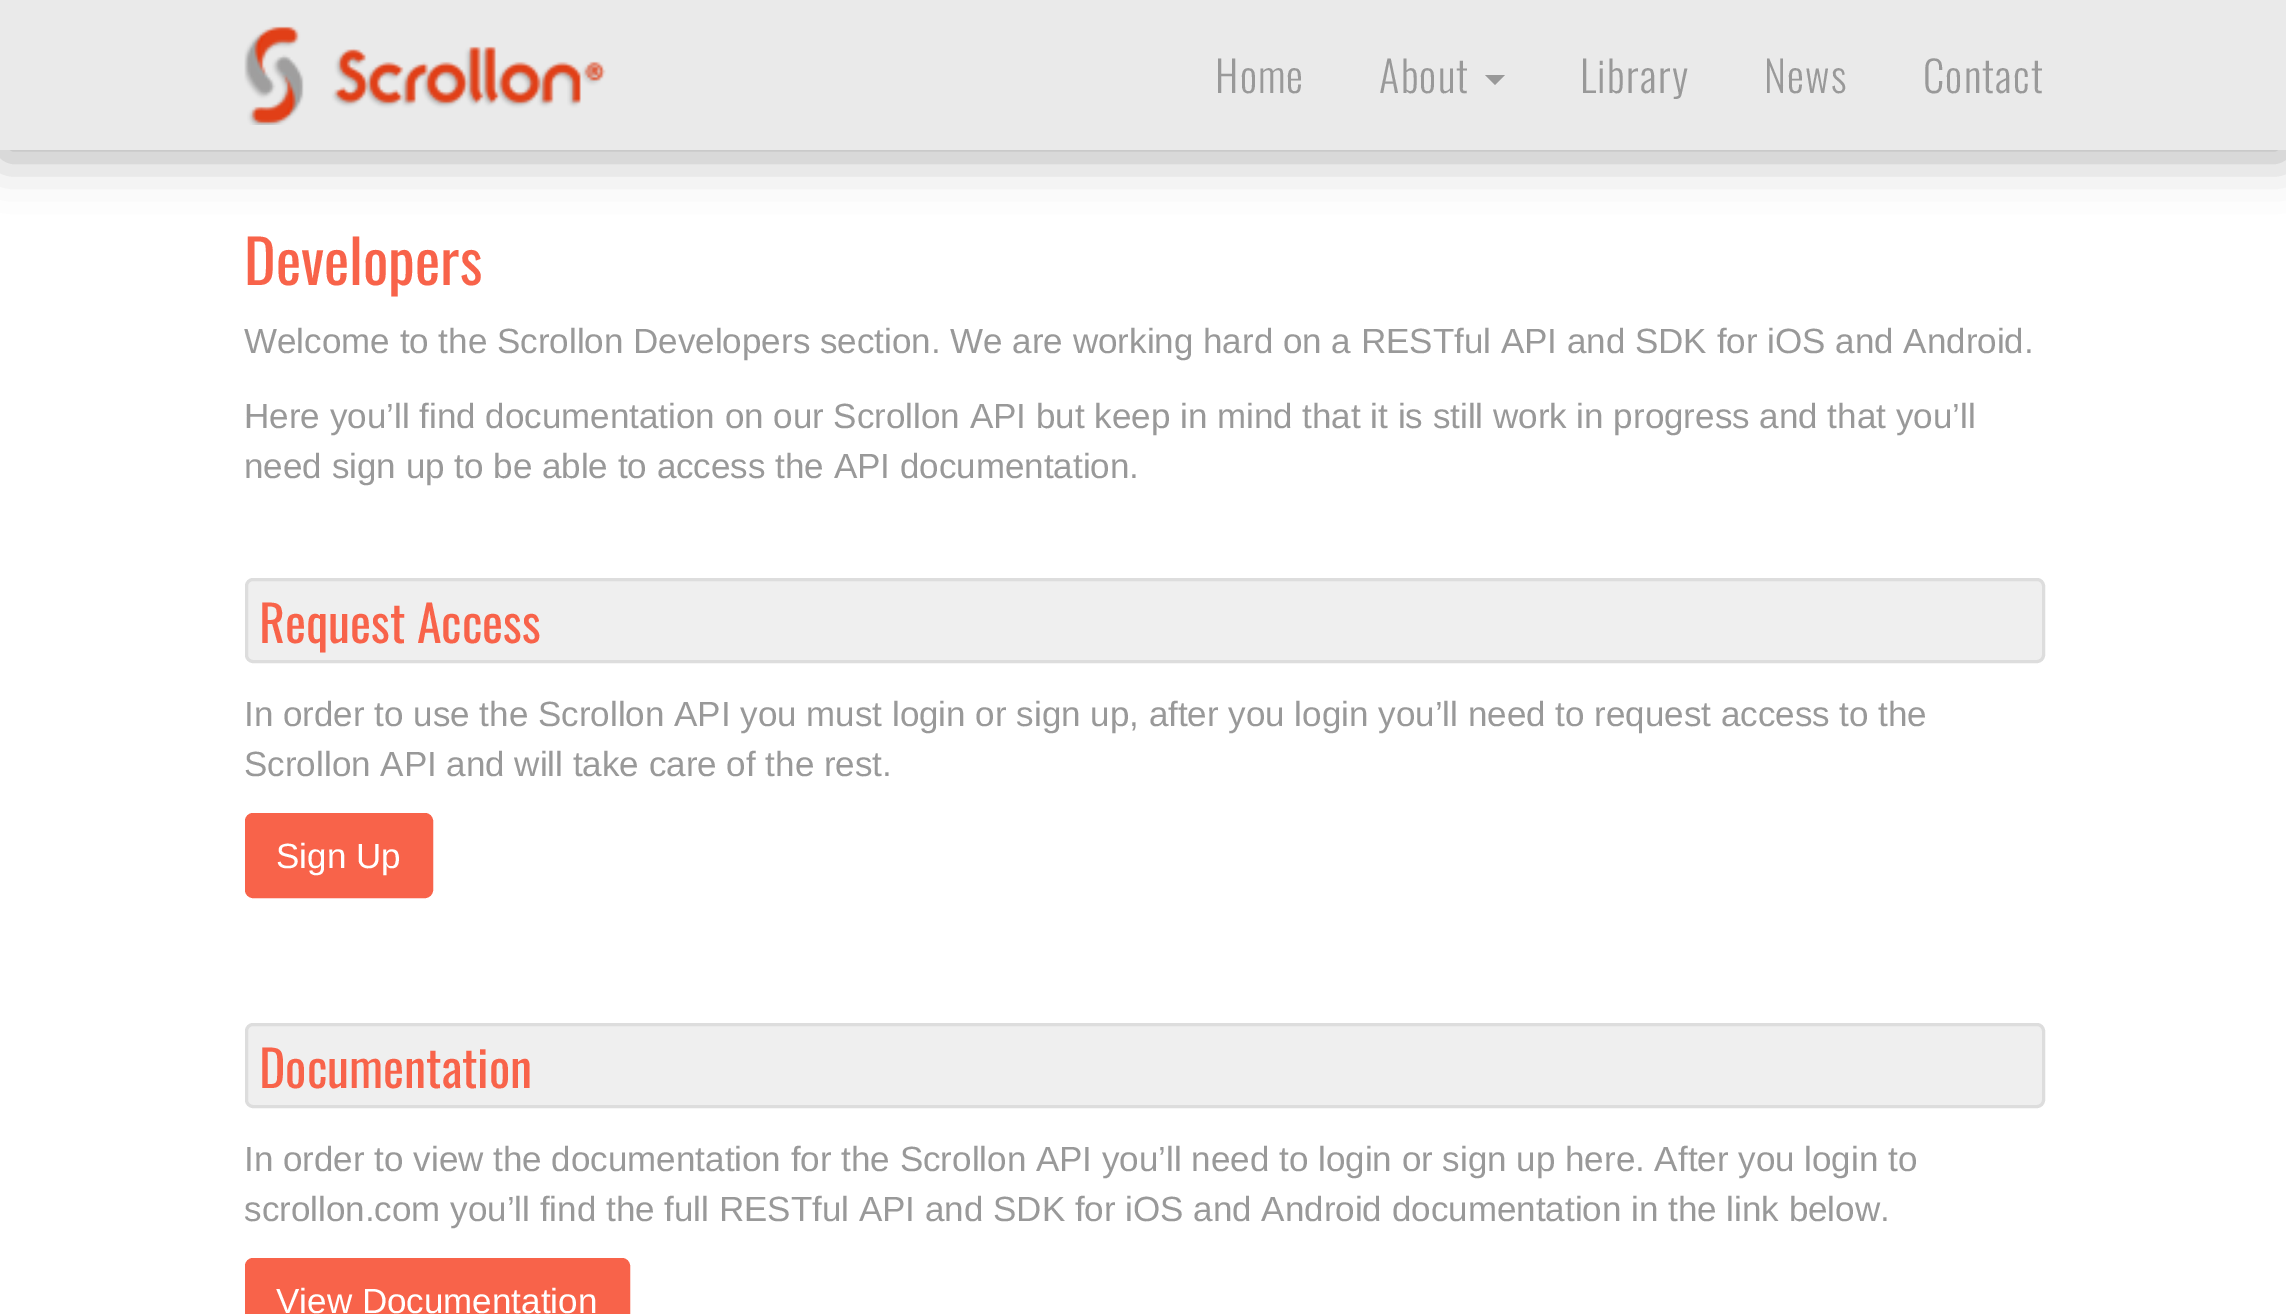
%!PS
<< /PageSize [2286 1314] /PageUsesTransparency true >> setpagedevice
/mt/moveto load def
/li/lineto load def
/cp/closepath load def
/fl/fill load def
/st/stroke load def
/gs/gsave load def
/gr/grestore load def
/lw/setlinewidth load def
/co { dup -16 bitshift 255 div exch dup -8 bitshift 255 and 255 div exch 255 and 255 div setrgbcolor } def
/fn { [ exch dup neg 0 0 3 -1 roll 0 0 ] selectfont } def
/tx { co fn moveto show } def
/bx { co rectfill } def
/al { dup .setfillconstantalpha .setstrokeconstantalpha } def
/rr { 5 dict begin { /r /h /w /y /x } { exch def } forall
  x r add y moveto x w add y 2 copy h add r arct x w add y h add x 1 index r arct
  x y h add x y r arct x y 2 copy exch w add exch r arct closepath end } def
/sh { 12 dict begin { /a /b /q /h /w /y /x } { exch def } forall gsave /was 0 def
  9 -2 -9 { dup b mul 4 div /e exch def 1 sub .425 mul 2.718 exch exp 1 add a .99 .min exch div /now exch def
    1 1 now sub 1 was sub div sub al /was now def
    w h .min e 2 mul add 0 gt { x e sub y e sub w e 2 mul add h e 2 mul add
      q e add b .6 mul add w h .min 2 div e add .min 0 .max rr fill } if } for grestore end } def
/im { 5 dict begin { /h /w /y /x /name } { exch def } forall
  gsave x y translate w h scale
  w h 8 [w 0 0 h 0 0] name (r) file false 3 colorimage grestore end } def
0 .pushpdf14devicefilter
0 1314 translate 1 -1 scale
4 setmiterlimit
0 0 2286 1314 16#FFFFFF bx
16#000000 co
0 8 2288 150 0 25 .3 sh
0 0 2286 150 16#EAEAEA bx
(media/1.raw) 244 26 362 99 im
16#999999 co
1485 75 mt 1505 75 li 1495 85 li cp fl
16#EFEFEF co
246.5 579.5 1797 82 6.5 rr gs fl gr
16#DDDDDD co
3 lw
st
16#F8634A co
246.5 814.5 185 82 6.5 rr gs fl gr
st
16#EFEFEF co
246.5 1024.5 1797 82 6.5 rr gs fl gr
16#DDDDDD co
st
16#F8634A co
246.5 1259.5 382 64 6.5 rr gs fl gr
st
/Oswald-Light 42.5 fn
16#999999 co
1215 93 mt 1.25 0 (Home) ashow
1379 93 mt 1.25 0 (About) ashow
1580 93 mt 1.25 0 (Library) ashow
1764 93 mt 1.25 0 (News) ashow
1923 93 mt 1.25 0 (Contact) ashow
(Developers) 244 285 /Oswald-Regular 60 16#F8634A tx
(Welcome to the Scrollon Developers section. We are working hard on a RESTful API and SDK for iOS and Android.) 244 353 /LiberationSans-Regular 35 16#999999 tx
(Here you’ll find documentation on our Scrollon API but keep in mind that it is still work in progress and that you’ll) 244 428 /LiberationSans-Regular 35 16#999999 tx
(need sign up to be able to access the API documentation.) 244 478 /LiberationSans-Regular 35 16#999999 tx
(Request Access) 259 643 /Oswald-Regular 50 16#F8634A tx
(In order to use the Scrollon API you must login or sign up, after you login you’ll need to request access to the) 244 726 /LiberationSans-Regular 35 16#999999 tx
(Scrollon API and will take care of the rest.) 244 776 /LiberationSans-Regular 35 16#999999 tx
(Sign Up) 276 868 /LiberationSans-Regular 35 16#FFFFFF tx
(Documentation) 259 1088 /Oswald-Regular 50 16#F8634A tx
(In order to view the documentation for the Scrollon API you’ll need to login or sign up here. After you login to) 244 1171 /LiberationSans-Regular 35 16#999999 tx
(scrollon.com you’ll find the full RESTful API and SDK for iOS and Android documentation in the link below.) 244 1221 /LiberationSans-Regular 35 16#999999 tx
(View Documentation) 276 1313 /LiberationSans-Regular 35 16#FFFFFF tx
.poppdf14devicefilter showpage
